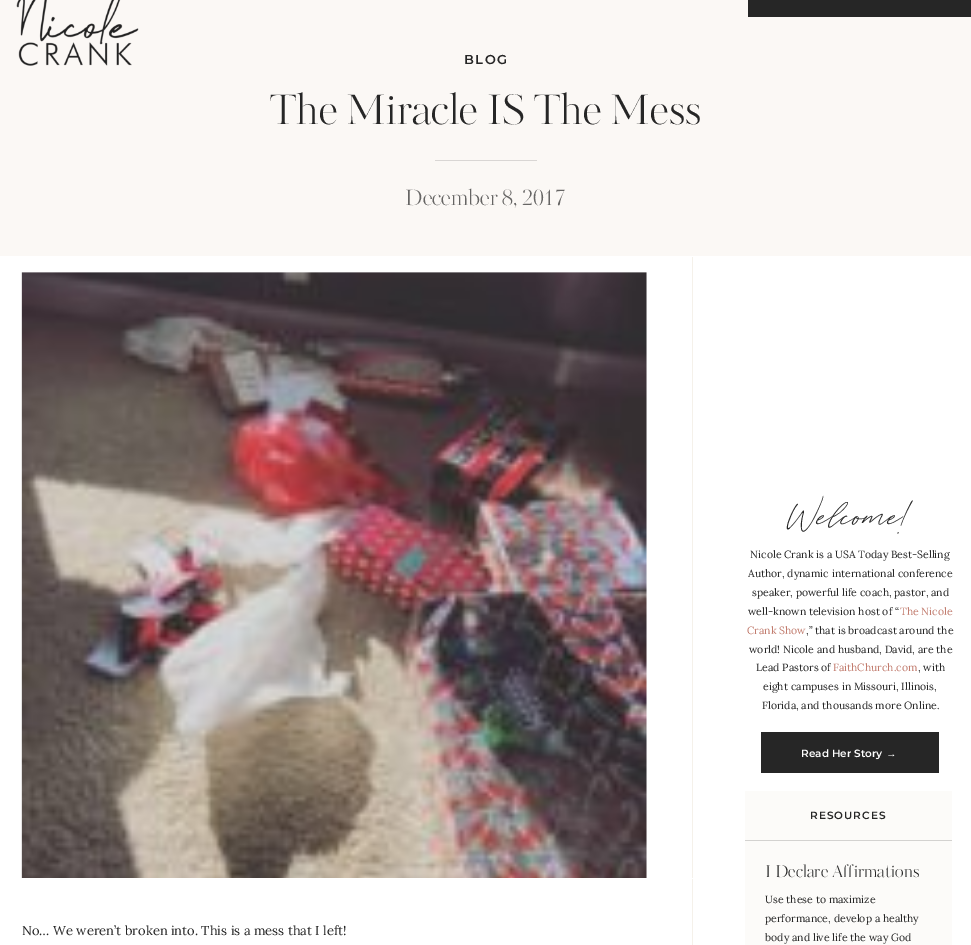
%!PS
<< /PageSize [971 945] >> setpagedevice
/mt/moveto load def
/co { dup -16 bitshift 255 div exch dup -8 bitshift 255 and 255 div exch 255 and 255 div setrgbcolor } def
/fn { [ exch dup neg 0 0 3 -1 roll 0 0 ] selectfont } def
/tx { co fn moveto show } def
/bx { co rectfill } def
/im { 5 dict begin { /h /w /y /x /name } { exch def } forall
  gsave x y translate w h scale
  w h 8 [w 0 0 h 0 0] name (r) file false 3 colorimage grestore end } def
0 945 translate 1 -1 scale
4 setmiterlimit
0 0 971 945 16#FFFFFF bx
0 0 971 256 16#FBF8F5 bx
(media/1.raw) 16 0 123 66 im
748 0 223 17 16#262626 bx
435 160 102 1 16#D9D6D4 bx
(media/2.raw) 21 272 626 606 im
692 257 1 621 16#F5F1EA bx
761 732 178 41 16#262626 bx
745 791 207 154 16#FCFBF9 bx
745 840 207 1 16#D3D2D0 bx
692 879 1 66 16#F5F1EA bx
/Montserrat-SemiBold 12.95 fn
16#262626 co
464 64 mt 1.5 0 (BLOG) ashow
(The Miracle IS The Mess) 270 124 /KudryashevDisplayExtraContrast-Regular 40.5 16#262626 tx
(December 8, 2017) 405 205 /KudryashevDisplayExtraContrast-Regular 21 16#666564 tx
(Welcome!) 790 529 /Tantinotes-Regular 44.5 16#262626 tx
(Nicole Crank is a USA Today Best-Selling) 750 558 /Lora-Regular 10.5 16#262626 tx
(Author, dynamic international conference) 748 577 /Lora-Regular 10.5 16#262626 tx
(speaker, powerful life coach, pastor, and) 752 596 /Lora-Regular 10.5 16#262626 tx
(well-known television host of “) 748 615 /Lora-Regular 10.5 16#262626 tx
(The Nicole) 900 615 /Lora-Regular 10.5 16#C27C6E tx
(Crank Show) 747 634 /Lora-Regular 10.5 16#C27C6E tx
(,” that is broadcast around the) 806 634 /Lora-Regular 10.5 16#262626 tx
(world! Nicole and husband, David, are the) 749 653 /Lora-Regular 10.5 16#262626 tx
(Lead Pastors of) 756 671 /Lora-Regular 10.5 16#262626 tx
(FaithChurch.com) 833 671 /Lora-Regular 10.5 16#C27C6E tx
(, with) 918 671 /Lora-Regular 10.5 16#262626 tx
(eight campuses in Missouri, Illinois,) 763 690 /Lora-Regular 10.5 16#262626 tx
(Florida, and thousands more Online.) 762 709 /Lora-Regular 10.5 16#262626 tx
(Read Her Story) 801 757 /Montserrat-SemiBold 10.5 16#FFFFFF tx
(→) 886 757 /LiberationSerif-Bold 10.5 16#FFFFFF tx
/Montserrat-SemiBold 10.5 fn
16#262626 co
810 819 mt 1 0 (RESOURCES) ashow
(I Declare Affirmations) 765 877 /KudryashevDisplayExtraContrast-Regular 16.25 16#262626 tx
(Use these to maximize) 765 903 /Lora-Regular 10.5 16#262626 tx
(performance, develop a healthy) 765 922 /Lora-Regular 10.5 16#262626 tx
(body and live life the way God) 765 941 /Lora-Regular 10.5 16#262626 tx
(No… We weren’t broken into. This is a mess that I left!) 22 935 /Lora-Regular 12.95 16#262626 tx
showpage
